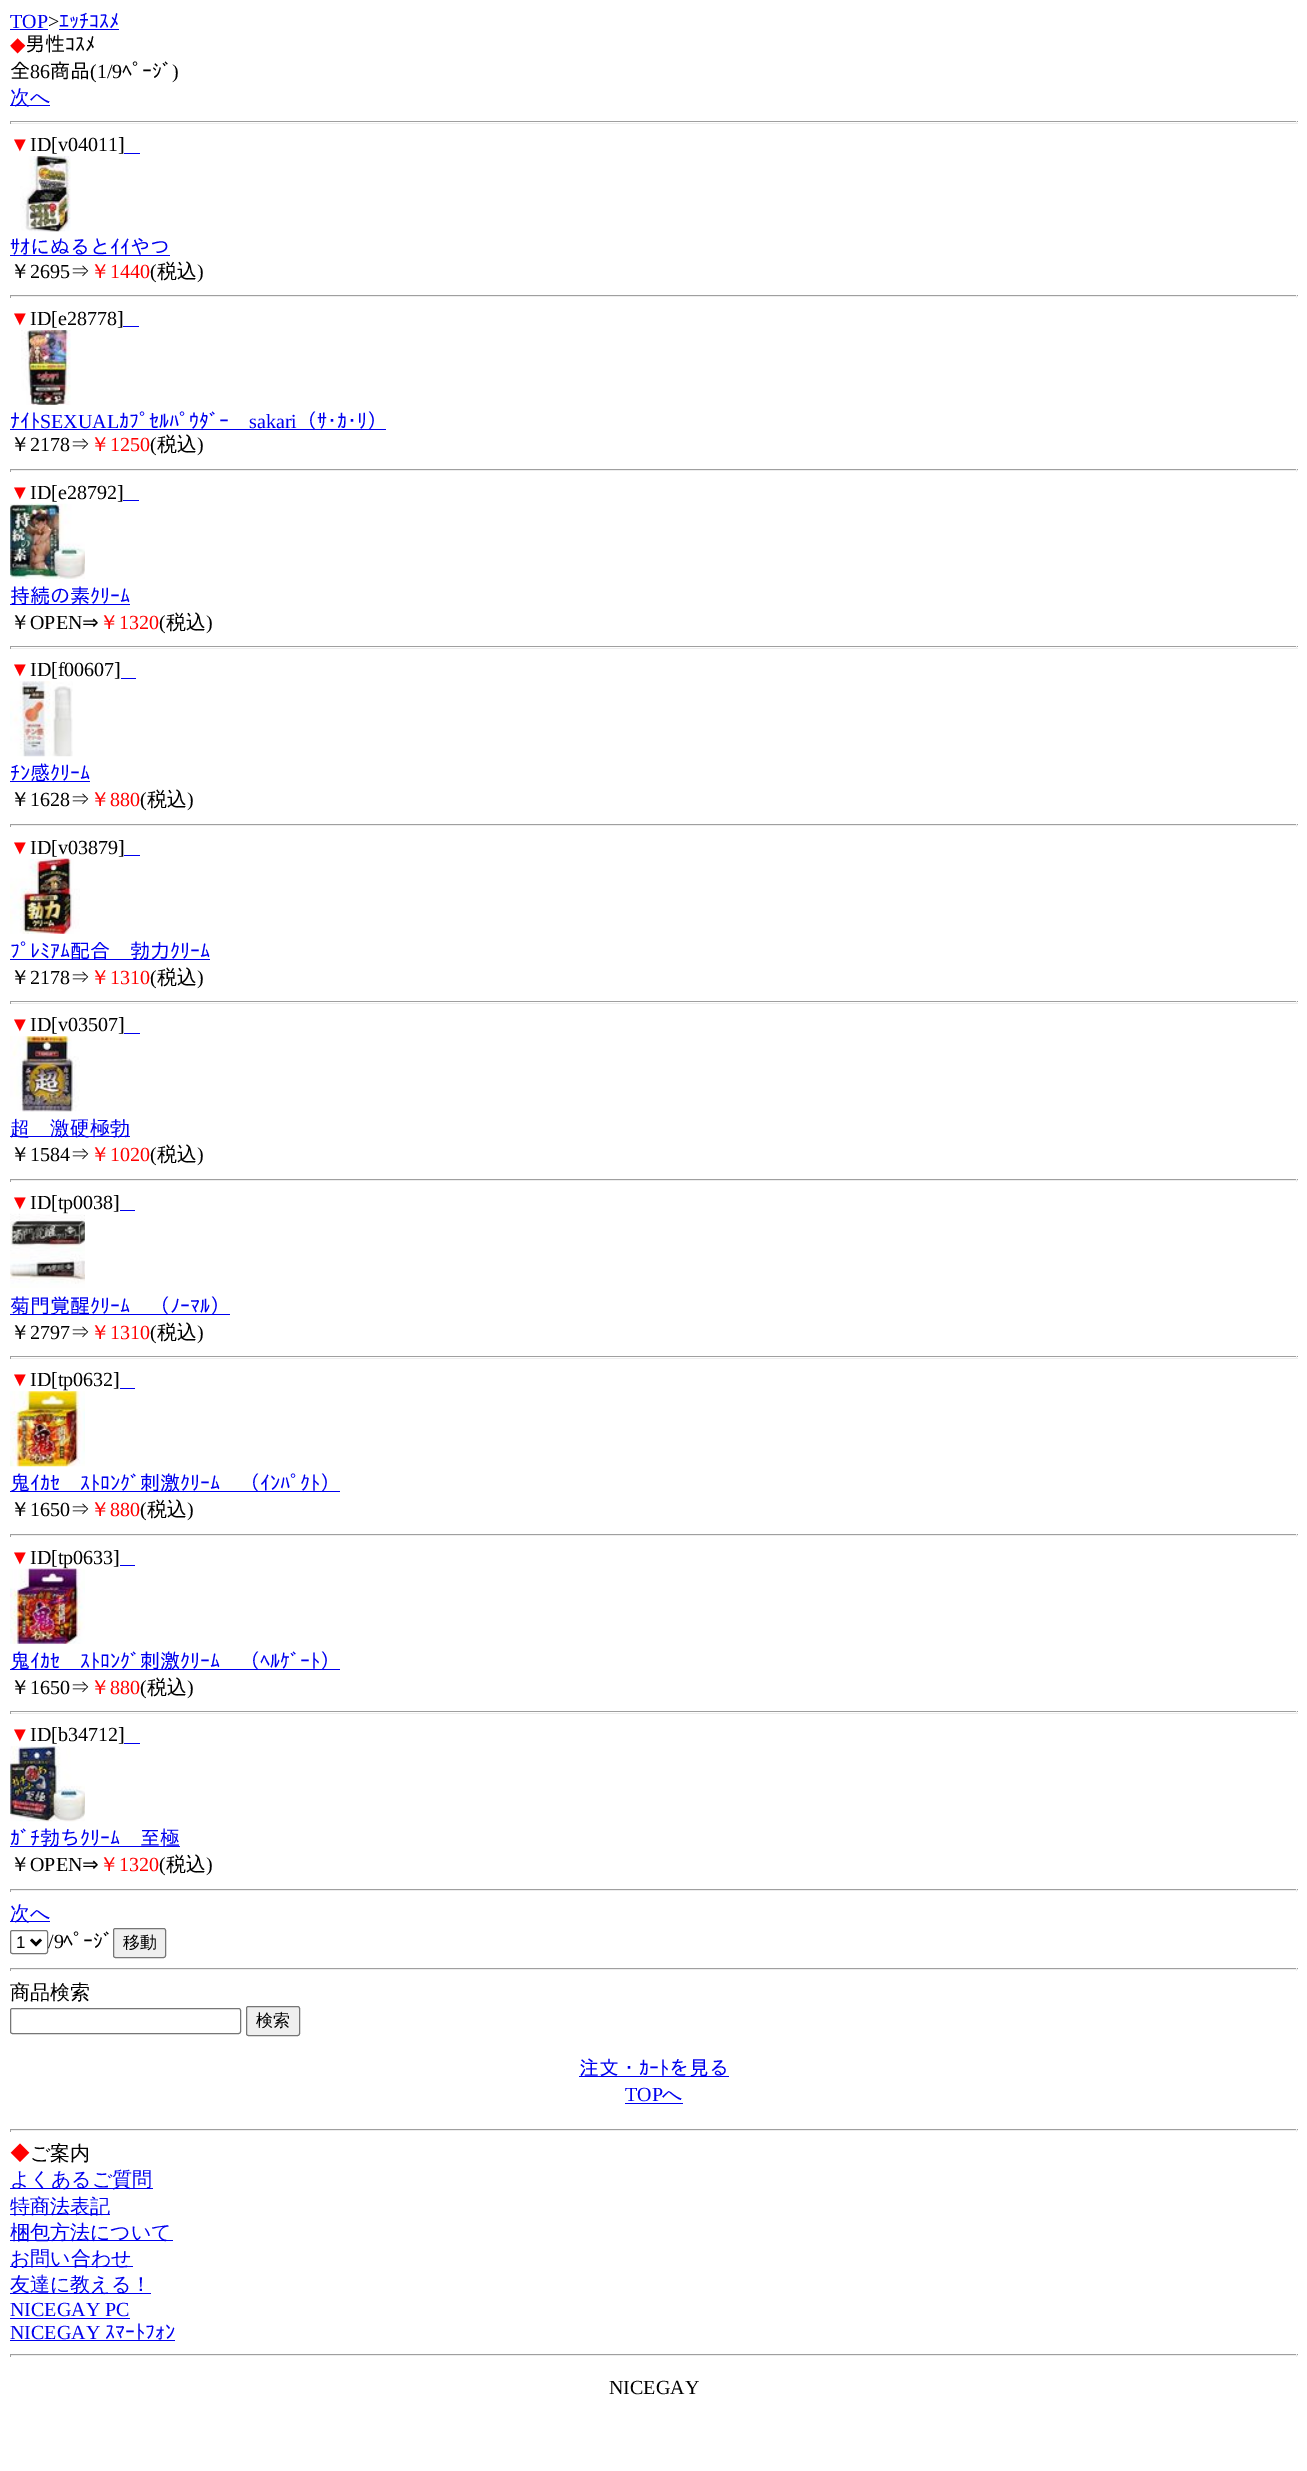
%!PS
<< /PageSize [1307 2471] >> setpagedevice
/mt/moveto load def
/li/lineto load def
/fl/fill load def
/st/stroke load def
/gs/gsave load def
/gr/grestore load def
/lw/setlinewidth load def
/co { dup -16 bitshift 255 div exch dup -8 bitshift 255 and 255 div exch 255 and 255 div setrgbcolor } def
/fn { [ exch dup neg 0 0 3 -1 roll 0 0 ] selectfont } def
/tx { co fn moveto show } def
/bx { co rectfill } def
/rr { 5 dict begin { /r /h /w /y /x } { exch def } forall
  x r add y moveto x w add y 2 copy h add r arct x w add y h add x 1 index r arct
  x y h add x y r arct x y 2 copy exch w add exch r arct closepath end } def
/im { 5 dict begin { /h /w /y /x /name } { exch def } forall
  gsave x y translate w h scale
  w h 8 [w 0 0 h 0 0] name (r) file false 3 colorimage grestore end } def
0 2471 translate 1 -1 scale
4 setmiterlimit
0 0 1307 2471 16#FFFFFF bx
10 29 38 1 16#0000EE bx
59 29 60 1 16#0000EE bx
10 105 40 1 16#0000EE bx
10 121 1288 1 16#9F9F9F bx
1296 121 1 3 16#EEEEEE bx
10 123 1288 1 16#EEEEEE bx
10 121 1 3 16#9F9F9F bx
124 153 16 1 16#0000EE bx
(media/1.raw) 20 156 51 76 im
10 255 160 1 16#0000EE bx
10 295 1288 1 16#9F9F9F bx
1296 295 1 3 16#EEEEEE bx
10 296 1288 1 16#EEEEEE bx
10 295 1 3 16#9F9F9F bx
123 326 16 1 16#0000EE bx
(media/2.raw) 21 330 50 75 im
10 429 376 1 16#0000EE bx
10 469 1288 1 16#9F9F9F bx
1296 469 1 3 16#EEEEEE bx
10 470 1288 1 16#EEEEEE bx
10 469 1 3 16#9F9F9F bx
123 500 16 1 16#0000EE bx
(media/3.raw) 10 503 75 76 im
10 604 120 1 16#0000EE bx
10 646 1288 1 16#9F9F9F bx
1296 646 1 3 16#EEEEEE bx
10 648 1288 1 16#EEEEEE bx
10 646 1 3 16#9F9F9F bx
121 678 15 1 16#0000EE bx
(media/4.raw) 10 681 63 76 im
10 781 80 1 16#0000EE bx
10 824 1288 1 16#9F9F9F bx
1296 824 1 3 16#EEEEEE bx
10 825 1288 1 16#EEEEEE bx
10 824 1 3 16#9F9F9F bx
124 855 16 1 16#0000EE bx
(media/5.raw) 10 858 70 76 im
10 959 200 1 16#0000EE bx
10 1001 1288 1 16#9F9F9F bx
1296 1001 1 3 16#EEEEEE bx
10 1003 1288 1 16#EEEEEE bx
10 1001 1 3 16#9F9F9F bx
124 1033 16 1 16#0000EE bx
(media/6.raw) 10 1036 70 76 im
10 1136 120 1 16#0000EE bx
10 1179 1288 1 16#9F9F9F bx
1296 1179 1 3 16#EEEEEE bx
10 1180 1288 1 16#EEEEEE bx
10 1179 1 3 16#9F9F9F bx
120 1210 15 1 16#0000EE bx
10 1314 220 1 16#0000EE bx
10 1356 1288 1 16#9F9F9F bx
1296 1356 1 3 16#EEEEEE bx
10 1358 1288 1 16#EEEEEE bx
10 1356 1 3 16#9F9F9F bx
120 1388 15 1 16#0000EE bx
(media/8.raw) 10 1391 75 76 im
10 1491 330 1 16#0000EE bx
10 1534 1288 1 16#9F9F9F bx
1296 1534 1 3 16#EEEEEE bx
10 1535 1288 1 16#EEEEEE bx
10 1534 1 3 16#9F9F9F bx
120 1565 15 1 16#0000EE bx
10 1669 330 1 16#0000EE bx
10 1711 1288 1 16#9F9F9F bx
1296 1711 1 3 16#EEEEEE bx
10 1713 1288 1 16#EEEEEE bx
10 1711 1 3 16#9F9F9F bx
124 1743 16 1 16#0000EE bx
(media/10.raw) 10 1746 75 76 im
10 1846 170 1 16#0000EE bx
10 1889 1288 1 16#9F9F9F bx
1296 1889 1 3 16#EEEEEE bx
10 1890 1288 1 16#EEEEEE bx
10 1889 1 3 16#9F9F9F bx
10 1921 40 1 16#0000EE bx
16#767676 co
10.5 1930.5 37 23 2 rr st
16#000000 co
2.5 lw
31 1939.5 mt 36 1944.5 li 41 1939.5 li st
16#EFEFEF co
113.5 1928.5 52 29 2 rr gs fl gr
16#767676 co
1 lw
st
10 1968 1288 1 16#9F9F9F bx
1296 1968 1 3 16#EEEEEE bx
10 1969 1288 1 16#EEEEEE bx
10 1968 1 3 16#9F9F9F bx
16#767676 co
10.5 2008.5 230 25 2 rr st
16#EFEFEF co
246.5 2006.5 53 29 2 rr gs fl gr
16#767676 co
st
579 2076 150 1 16#0000EE bx
625 2103 58 1 16#0000EE bx
10 2129 1288 1 16#9F9F9F bx
1296 2129 1 3 16#EEEEEE bx
10 2130 1288 1 16#EEEEEE bx
10 2129 1 3 16#9F9F9F bx
10 2188 143 1 16#0000EE bx
10 2214 100 1 16#0000EE bx
10 2240 163 1 16#0000EE bx
10 2266 123 1 16#0000EE bx
10 2293 141 1 16#0000EE bx
10 2318 120 1 16#0000EE bx
10 2340 165 1 16#0000EE bx
10 2354 1288 1 16#9F9F9F bx
1296 2354 1 3 16#EEEEEE bx
10 2355 1288 1 16#EEEEEE bx
10 2354 1 3 16#9F9F9F bx
(TOP) 10 28 /LiberationSerif-Regular 20 16#0000EE tx
(>) 48 28 /LiberationSerif-Regular 20 16#000000 tx
(ｴｯﾁｺｽﾒ) 59 28 /IPAGothic-Regular 20 16#0000EE tx
(◆) 10 51 /DejaVuSans-Regular 20 16#FF0000 tx
(男性ｺｽﾒ) 25 51 /IPAGothic-Regular 20 16#000000 tx
(全) 10 78 /IPAGothic-Regular 20 16#000000 tx
(86) 30 78 /LiberationSerif-Regular 20 16#000000 tx
(商品) 50 78 /IPAGothic-Regular 20 16#000000 tx
(\(1/9) 90 78 /LiberationSerif-Regular 20 16#000000 tx
(ﾍﾟｰｼﾞ) 122 78 /IPAGothic-Regular 20 16#000000 tx
(\)) 172 78 /LiberationSerif-Regular 20 16#000000 tx
(次へ) 10 104 /WenQuanYiZenHei-Medium 20 16#0000EE tx
(▼) 10 151 /LiberationSerif-Regular 20 16#FF0000 tx
(ID[v04011]) 30 151 /LiberationSerif-Regular 20 16#000000 tx
(ｻｵにぬるとｲｲやつ) 10 254 /IPAGothic-Regular 20 16#0000EE tx
(￥) 10 278 /WenQuanYiZenHei-Medium 20 16#000000 tx
(2695) 30 278 /LiberationSerif-Regular 20 16#000000 tx
(⇒) 70 278 /WenQuanYiZenHei-Medium 20 16#000000 tx
(￥) 90 278 /WenQuanYiZenHei-Medium 20 16#FF0000 tx
(1440) 110 278 /LiberationSerif-Regular 20 16#FF0000 tx
(\() 150 278 /LiberationSerif-Regular 20 16#000000 tx
(税込) 157 278 /WenQuanYiZenHei-Medium 20 16#000000 tx
(\)) 197 278 /LiberationSerif-Regular 20 16#000000 tx
(▼) 10 325 /LiberationSerif-Regular 20 16#FF0000 tx
(ID[e28778]) 30 325 /LiberationSerif-Regular 20 16#000000 tx
(ﾅｲﾄ) 10 428 /IPAGothic-Regular 20 16#0000EE tx
(SEXUAL) 40 428 /LiberationSerif-Regular 20 16#0000EE tx
(ｶﾌﾟｾﾙﾊﾟｳﾀﾞｰ) 119 428 /IPAGothic-Regular 20 16#0000EE tx
(sakari) 249 428 /LiberationSerif-Regular 20 16#0000EE tx
(（ｻ･ｶ･ﾘ）) 297 428 /IPAGothic-Regular 20 16#0000EE tx
(￥) 10 451 /WenQuanYiZenHei-Medium 20 16#000000 tx
(2178) 30 451 /LiberationSerif-Regular 20 16#000000 tx
(⇒) 70 451 /WenQuanYiZenHei-Medium 20 16#000000 tx
(￥) 90 451 /WenQuanYiZenHei-Medium 20 16#FF0000 tx
(1250) 110 451 /LiberationSerif-Regular 20 16#FF0000 tx
(\() 150 451 /LiberationSerif-Regular 20 16#000000 tx
(税込) 157 451 /WenQuanYiZenHei-Medium 20 16#000000 tx
(\)) 197 451 /LiberationSerif-Regular 20 16#000000 tx
(▼) 10 499 /LiberationSerif-Regular 20 16#FF0000 tx
(ID[e28792]) 30 499 /LiberationSerif-Regular 20 16#000000 tx
(持続の素ｸﾘｰﾑ) 10 603 /IPAGothic-Regular 20 16#0000EE tx
(￥) 10 629 /WenQuanYiZenHei-Medium 20 16#000000 tx
(OPEN) 30 629 /LiberationSerif-Regular 20 16#000000 tx
(⇒) 82 629 /DejaVuSans-Regular 20 16#000000 tx
(￥) 99 629 /WenQuanYiZenHei-Medium 20 16#FF0000 tx
(1320) 119 629 /LiberationSerif-Regular 20 16#FF0000 tx
(\() 159 629 /LiberationSerif-Regular 20 16#000000 tx
(税込) 166 629 /WenQuanYiZenHei-Medium 20 16#000000 tx
(\)) 206 629 /LiberationSerif-Regular 20 16#000000 tx
(▼) 10 676 /LiberationSerif-Regular 20 16#FF0000 tx
(ID[f00607]) 30 676 /LiberationSerif-Regular 20 16#000000 tx
(ﾁﾝ感ｸﾘｰﾑ) 10 780 /IPAGothic-Regular 20 16#0000EE tx
(￥) 10 806 /WenQuanYiZenHei-Medium 20 16#000000 tx
(1628) 30 806 /LiberationSerif-Regular 20 16#000000 tx
(⇒) 70 806 /WenQuanYiZenHei-Medium 20 16#000000 tx
(￥) 90 806 /WenQuanYiZenHei-Medium 20 16#FF0000 tx
(880) 110 806 /LiberationSerif-Regular 20 16#FF0000 tx
(\() 140 806 /LiberationSerif-Regular 20 16#000000 tx
(税込) 147 806 /WenQuanYiZenHei-Medium 20 16#000000 tx
(\)) 187 806 /LiberationSerif-Regular 20 16#000000 tx
(▼) 10 854 /LiberationSerif-Regular 20 16#FF0000 tx
(ID[v03879]) 30 854 /LiberationSerif-Regular 20 16#000000 tx
(ﾌﾟﾚﾐｱﾑ配合　勃力ｸﾘｰﾑ) 10 958 /IPAGothic-Regular 20 16#0000EE tx
(￥) 10 984 /WenQuanYiZenHei-Medium 20 16#000000 tx
(2178) 30 984 /LiberationSerif-Regular 20 16#000000 tx
(⇒) 70 984 /WenQuanYiZenHei-Medium 20 16#000000 tx
(￥) 90 984 /WenQuanYiZenHei-Medium 20 16#FF0000 tx
(1310) 110 984 /LiberationSerif-Regular 20 16#FF0000 tx
(\() 150 984 /LiberationSerif-Regular 20 16#000000 tx
(税込) 157 984 /WenQuanYiZenHei-Medium 20 16#000000 tx
(\)) 197 984 /LiberationSerif-Regular 20 16#000000 tx
(▼) 10 1031 /LiberationSerif-Regular 20 16#FF0000 tx
(ID[v03507]) 30 1031 /LiberationSerif-Regular 20 16#000000 tx
(超　激硬極勃) 10 1135 /WenQuanYiZenHei-Medium 20 16#0000EE tx
(￥) 10 1161 /WenQuanYiZenHei-Medium 20 16#000000 tx
(1584) 30 1161 /LiberationSerif-Regular 20 16#000000 tx
(⇒) 70 1161 /WenQuanYiZenHei-Medium 20 16#000000 tx
(￥) 90 1161 /WenQuanYiZenHei-Medium 20 16#FF0000 tx
(1020) 110 1161 /LiberationSerif-Regular 20 16#FF0000 tx
(\() 150 1161 /LiberationSerif-Regular 20 16#000000 tx
(税込) 157 1161 /WenQuanYiZenHei-Medium 20 16#000000 tx
(\)) 197 1161 /LiberationSerif-Regular 20 16#000000 tx
(▼) 10 1209 /LiberationSerif-Regular 20 16#FF0000 tx
(ID[tp0038]) 30 1209 /LiberationSerif-Regular 20 16#000000 tx
(media/7.raw) 10 1213 75 75 im
(菊門覚醒ｸﾘｰﾑ　（ﾉｰﾏﾙ）) 10 1313 /IPAGothic-Regular 20 16#0000EE tx
(￥) 10 1339 /WenQuanYiZenHei-Medium 20 16#000000 tx
(2797) 30 1339 /LiberationSerif-Regular 20 16#000000 tx
(⇒) 70 1339 /WenQuanYiZenHei-Medium 20 16#000000 tx
(￥) 90 1339 /WenQuanYiZenHei-Medium 20 16#FF0000 tx
(1310) 110 1339 /LiberationSerif-Regular 20 16#FF0000 tx
(\() 150 1339 /LiberationSerif-Regular 20 16#000000 tx
(税込) 157 1339 /WenQuanYiZenHei-Medium 20 16#000000 tx
(\)) 197 1339 /LiberationSerif-Regular 20 16#000000 tx
(▼) 10 1386 /LiberationSerif-Regular 20 16#FF0000 tx
(ID[tp0632]) 30 1386 /LiberationSerif-Regular 20 16#000000 tx
(鬼ｲｶｾ　ｽﾄﾛﾝｸﾞ刺激ｸﾘｰﾑ　（ｲﾝﾊﾟｸﾄ）) 10 1490 /IPAGothic-Regular 20 16#0000EE tx
(￥) 10 1516 /WenQuanYiZenHei-Medium 20 16#000000 tx
(1650) 30 1516 /LiberationSerif-Regular 20 16#000000 tx
(⇒) 70 1516 /WenQuanYiZenHei-Medium 20 16#000000 tx
(￥) 90 1516 /WenQuanYiZenHei-Medium 20 16#FF0000 tx
(880) 110 1516 /LiberationSerif-Regular 20 16#FF0000 tx
(\() 140 1516 /LiberationSerif-Regular 20 16#000000 tx
(税込) 147 1516 /WenQuanYiZenHei-Medium 20 16#000000 tx
(\)) 187 1516 /LiberationSerif-Regular 20 16#000000 tx
(▼) 10 1564 /LiberationSerif-Regular 20 16#FF0000 tx
(ID[tp0633]) 30 1564 /LiberationSerif-Regular 20 16#000000 tx
(media/9.raw) 10 1568 75 76 im
(鬼ｲｶｾ　ｽﾄﾛﾝｸﾞ刺激ｸﾘｰﾑ　（ﾍﾙｹﾞｰﾄ）) 10 1668 /IPAGothic-Regular 20 16#0000EE tx
(￥) 10 1694 /WenQuanYiZenHei-Medium 20 16#000000 tx
(1650) 30 1694 /LiberationSerif-Regular 20 16#000000 tx
(⇒) 70 1694 /WenQuanYiZenHei-Medium 20 16#000000 tx
(￥) 90 1694 /WenQuanYiZenHei-Medium 20 16#FF0000 tx
(880) 110 1694 /LiberationSerif-Regular 20 16#FF0000 tx
(\() 140 1694 /LiberationSerif-Regular 20 16#000000 tx
(税込) 147 1694 /WenQuanYiZenHei-Medium 20 16#000000 tx
(\)) 187 1694 /LiberationSerif-Regular 20 16#000000 tx
(▼) 10 1741 /LiberationSerif-Regular 20 16#FF0000 tx
(ID[b34712]) 30 1741 /LiberationSerif-Regular 20 16#000000 tx
(ｶﾞﾁ勃ちｸﾘｰﾑ　至極) 10 1845 /IPAGothic-Regular 20 16#0000EE tx
(￥) 10 1871 /WenQuanYiZenHei-Medium 20 16#000000 tx
(OPEN) 30 1871 /LiberationSerif-Regular 20 16#000000 tx
(⇒) 82 1871 /DejaVuSans-Regular 20 16#000000 tx
(￥) 99 1871 /WenQuanYiZenHei-Medium 20 16#FF0000 tx
(1320) 119 1871 /LiberationSerif-Regular 20 16#FF0000 tx
(\() 159 1871 /LiberationSerif-Regular 20 16#000000 tx
(税込) 166 1871 /WenQuanYiZenHei-Medium 20 16#000000 tx
(\)) 206 1871 /LiberationSerif-Regular 20 16#000000 tx
(次へ) 10 1920 /WenQuanYiZenHei-Medium 20 16#0000EE tx
(1) 16 1948 /LiberationSans-Regular 17 16#000000 tx
(/9) 48 1948 /LiberationSerif-Regular 20 16#000000 tx
(ﾍﾟｰｼﾞ) 63 1948 /IPAGothic-Regular 20 16#000000 tx
(移動) 123 1948 /WenQuanYiZenHei-Medium 17 16#000000 tx
(商品検索) 10 1999 /WenQuanYiZenHei-Medium 20 16#000000 tx
(検索) 256 2026 /WenQuanYiZenHei-Medium 17 16#000000 tx
(注文・ｶｰﾄを見る) 579 2075 /IPAGothic-Regular 20 16#0000EE tx
(TOP) 625 2101 /LiberationSerif-Regular 20 16#0000EE tx
(へ) 662 2101 /WenQuanYiZenHei-Medium 20 16#0000EE tx
(◆) 10 2160 /WenQuanYiZenHei-Medium 20 16#FF0000 tx
(ご案内) 30 2160 /WenQuanYiZenHei-Medium 20 16#000000 tx
(よくあるご質問) 10 2186 /WenQuanYiZenHei-Medium 20 16#0000EE tx
(特商法表記) 10 2213 /WenQuanYiZenHei-Medium 20 16#0000EE tx
(梱包方法について) 10 2239 /WenQuanYiZenHei-Medium 20 16#0000EE tx
(お問い合わせ) 10 2265 /WenQuanYiZenHei-Medium 20 16#0000EE tx
(友達に教える！) 10 2291 /WenQuanYiZenHei-Medium 20 16#0000EE tx
(NICEGAY PC) 10 2316 /LiberationSerif-Regular 20 16#0000EE tx
(NICEGAY) 10 2339 /LiberationSerif-Regular 20 16#0000EE tx
(ｽﾏｰﾄﾌｫﾝ) 105 2339 /IPAGothic-Regular 20 16#0000EE tx
(NICEGAY) 609 2394 /LiberationSerif-Regular 20 16#000000 tx
showpage
